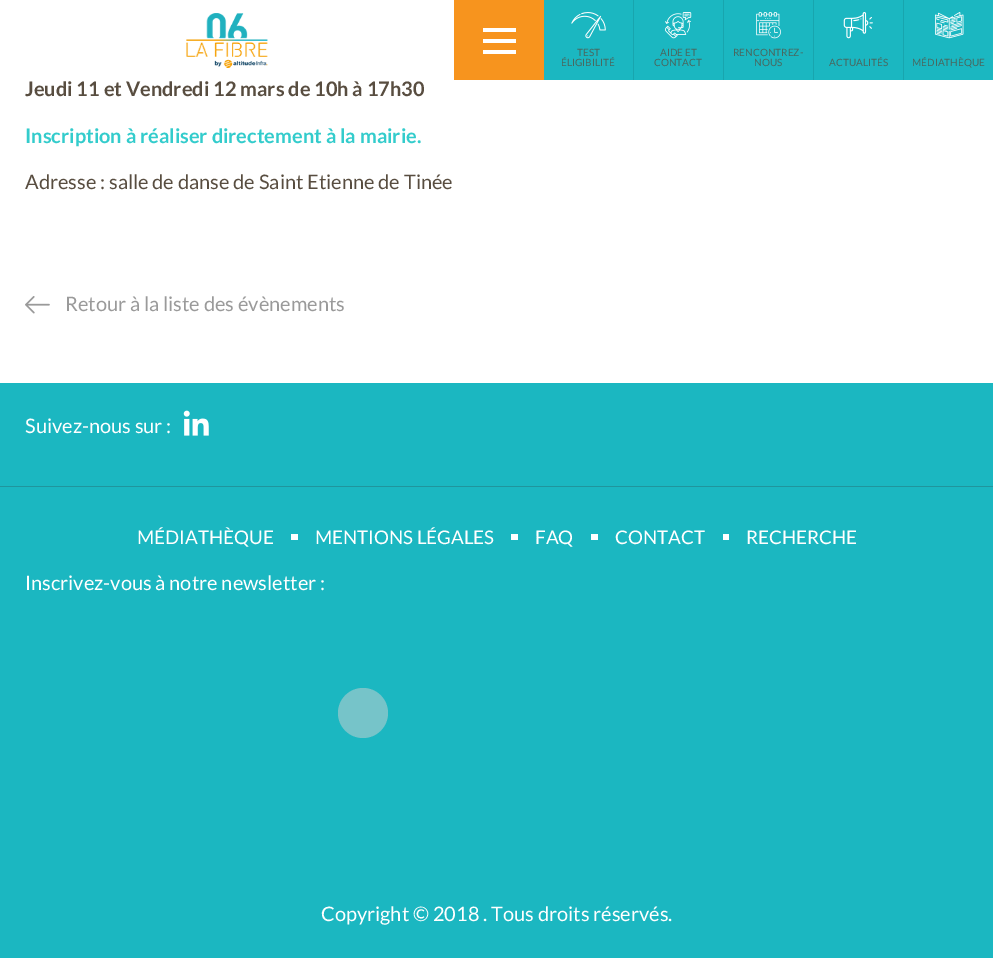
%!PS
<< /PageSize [993 958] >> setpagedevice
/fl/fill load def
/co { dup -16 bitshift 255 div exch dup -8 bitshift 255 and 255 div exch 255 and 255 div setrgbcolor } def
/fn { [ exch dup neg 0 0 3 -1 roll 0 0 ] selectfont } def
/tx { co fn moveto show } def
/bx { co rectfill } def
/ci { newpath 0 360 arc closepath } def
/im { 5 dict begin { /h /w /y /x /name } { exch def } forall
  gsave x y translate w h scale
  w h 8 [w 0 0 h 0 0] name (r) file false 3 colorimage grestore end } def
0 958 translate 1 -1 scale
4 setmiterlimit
0 0 993 958 16#FFFFFF bx
(media/1.raw) 186 13 82 55 im
454 0 90 80 16#F7941E bx
483 28 33 4 16#FFFFFF bx
483 39 33 4 16#FFFFFF bx
483 50 33 4 16#FFFFFF bx
544 0 89 80 16#1BB7C1 bx
633 0 1 80 16#18A5AE bx
(media/2.raw) 571 12 35 27 im
634 0 89 80 16#1BB7C1 bx
723 0 1 80 16#18A5AE bx
(media/3.raw) 665 12 27 27 im
724 0 89 80 16#1BB7C1 bx
813 0 1 80 16#18A5AE bx
(media/4.raw) 756 12 25 27 im
814 0 89 80 16#1BB7C1 bx
903 0 1 80 16#18A5AE bx
(media/5.raw) 843 12 30 27 im
904 0 89 80 16#1BB7C1 bx
(media/6.raw) 935 12 29 27 im
(media/7.raw) 25 296 25 18 im
0 383 993 575 16#1BB7C1 bx
(media/8.raw) 183 410 26 26 im
0 486 993 1 16#20959D bx
291 534 7 6 16#FFFFFF bx
511 534 7 6 16#FFFFFF bx
591 534 7 6 16#FFFFFF bx
723 534 6 6 16#FFFFFF bx
16#76C4C9 co
363 713 25 ci fl
(TEST) 577 56 /Lato-Regular 10 16#496860 tx
(ÉLIGIBILITÉ) 561 66 /Lato-Regular 10 16#496860 tx
(AIDE ET) 660 56 /Lato-Regular 10 16#496860 tx
(CONTACT) 654 66 /Lato-Regular 10 16#496860 tx
(RENCONTREZ-) 733 56 /Lato-Regular 10 16#496860 tx
(NOUS) 754 66 /Lato-Regular 10 16#496860 tx
(ACTUALITÉS) 829 66 /Lato-Regular 10 16#496860 tx
(MÉDIATHÈQUE) 912 66 /Lato-Regular 10 16#496860 tx
(Jeudi 11 et Vendredi 12 mars de 10h à 17h30) 25 96 /Lato-Bold 20 16#584D40 tx
(Inscription à réaliser directement à la mairie.) 25 143 /Lato-Bold 20 16#33CCCC tx
(Adresse : salle de danse de Saint Etienne de Tinée) 25 189 /Lato-Regular 20 16#584D40 tx
(Retour à la liste des évènements) 65 311 /Lato-Regular 20 16#9A9A9A tx
(Suivez-nous sur :) 25 433 /Lato-Regular 20 16#FFFFFF tx
(MÉDIATHÈQUE) 137 544 /Lato-Regular 18.75 16#FFFFFF tx
(MENTIONS LÉGALES) 315 544 /Lato-Regular 18.75 16#FFFFFF tx
(FAQ) 535 544 /Lato-Regular 18.75 16#FFFFFF tx
(CONTACT) 615 544 /Lato-Regular 18.75 16#FFFFFF tx
(RECHERCHE) 746 544 /Lato-Regular 18.75 16#FFFFFF tx
(Inscrivez-vous à notre newsletter :) 25 590 /Lato-Regular 20 16#FFFFFF tx
(Copyright © 2018 . Tous droits réservés.) 321 921 /Lato-Regular 20 16#FFFFFF tx
showpage
